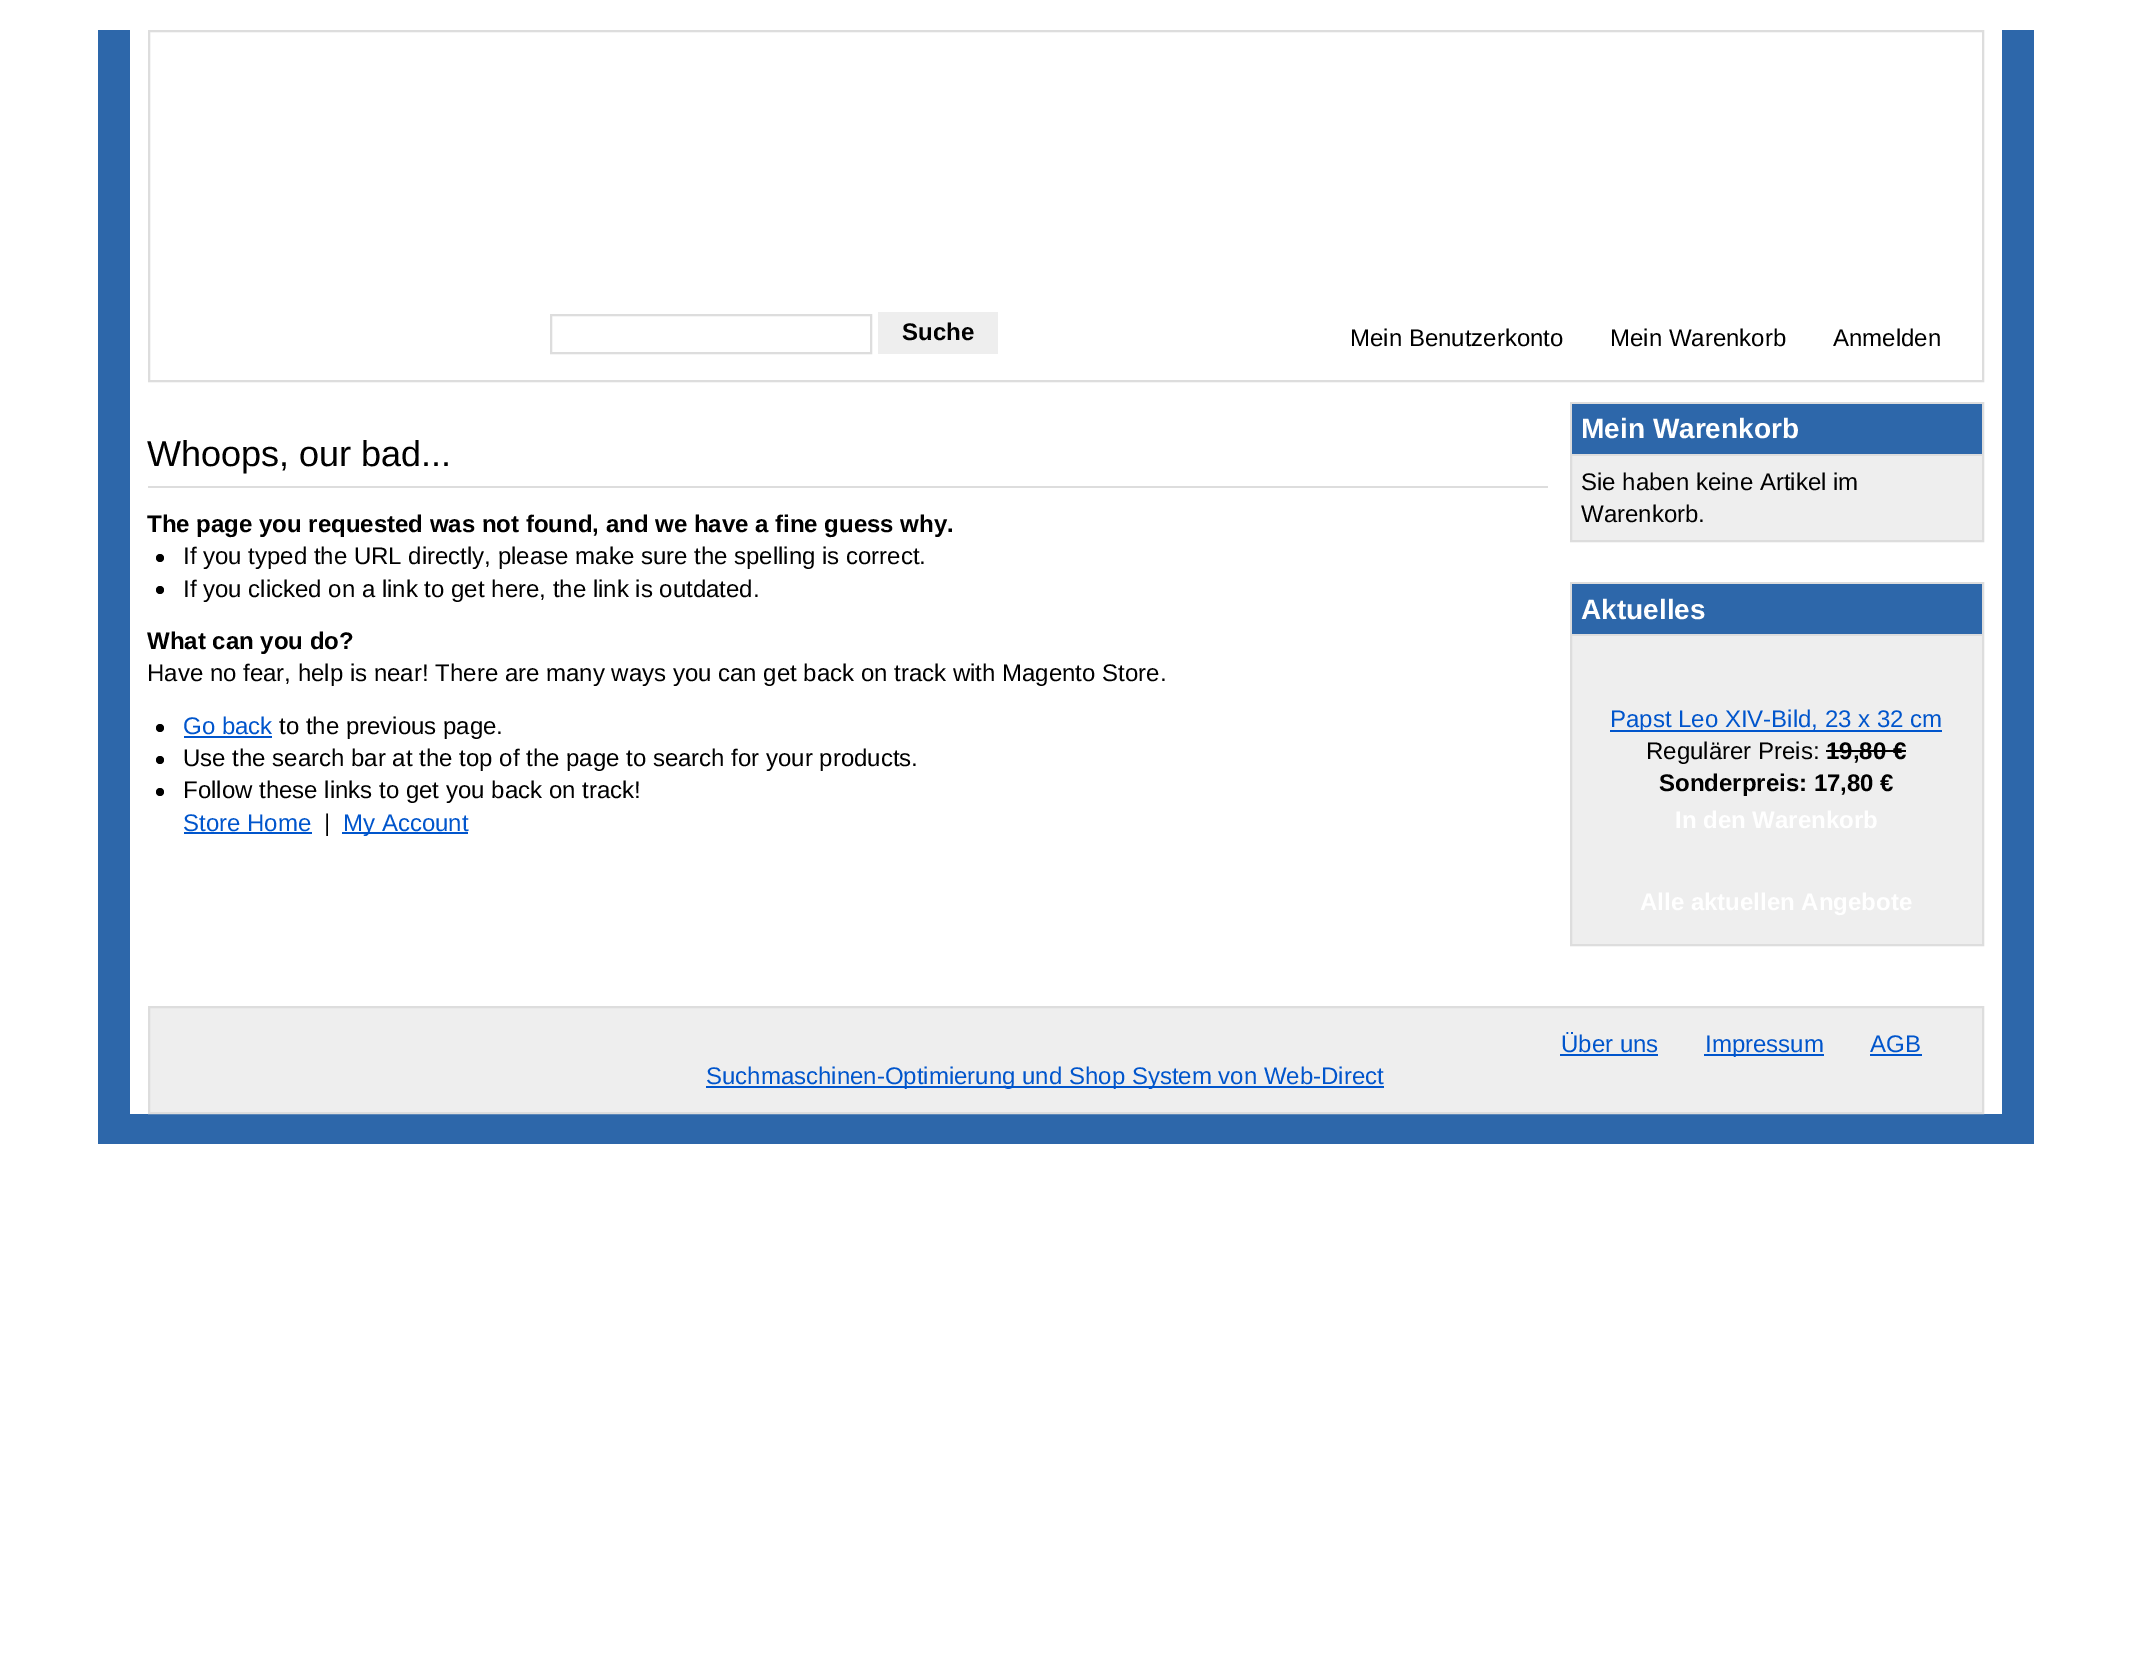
%!PS
<< /PageSize [2130 1665] >> setpagedevice
/mt/moveto load def
/li/lineto load def
/cp/closepath load def
/fl/fill load def
/st/stroke load def
/gs/gsave load def
/gr/grestore load def
/lw/setlinewidth load def
/co { dup -16 bitshift 255 div exch dup -8 bitshift 255 and 255 div exch 255 and 255 div setrgbcolor } def
/fn { [ exch dup neg 0 0 3 -1 roll 0 0 ] selectfont } def
/tx { co fn moveto show } def
/bx { co rectfill } def
/ci { newpath 0 360 arc closepath } def
0 1665 translate 1 -1 scale
4 setmiterlimit
0 0 2130 1665 16#FFFFFF bx
98 30 1936 1114 16#2D67AA bx
130 30 1872 1084 16#FFFFFF bx
16#DDDDDD co
2 lw
149 31 1834 350 rectstroke
551 315 320 38 rectstroke
878 312 120 42 16#EEEEEE bx
148 486 1400 2 16#DDDDDD bx
16#000000 co
160 558 4 ci fl
160 590 4 ci fl
160 728 4 ci fl
184 736 88 2 16#0055CC bx
16#000000 co
160 760 4 ci fl
160 792 4 ci fl
184 832 128 2 16#0055CC bx
342 832 126 2 16#0055CC bx
1572 456 410 84 16#EEEEEE bx
16#DDDDDD co
1571 403 412 138 rectstroke
1572 404 410 50 16#2D67AA bx
1572 454 410 2 16#DDDDDD bx
1572 636 410 308 16#EEEEEE bx
16#DDDDDD co
1571 583 412 362 rectstroke
1572 584 410 50 16#2D67AA bx
1572 634 410 2 16#DDDDDD bx
1610 730 332 2 16#0055CC bx
1826 750 80 2 16#000000 bx
16#EEEEEE co
149 1007 mt 1983 1007 li 1983 1113 li 149 1113 li cp gs fl gr
16#DDDDDD co
st
1560 1054 98 2 16#0055CC bx
1704 1054 120 2 16#0055CC bx
1870 1054 52 2 16#0055CC bx
706 1086 678 2 16#0055CC bx
(Suche) 902 340 /LiberationSans-Bold 24 16#000000 tx
(Mein Benutzerkonto) 1350 346 /LiberationSans-Regular 24 16#000000 tx
(Mein Warenkorb) 1610 346 /LiberationSans-Regular 24 16#000000 tx
(Anmelden) 1833 346 /LiberationSans-Regular 24 16#000000 tx
(Whoops, our bad...) 147 466 /LiberationSans-Regular 36 16#000000 tx
(The page you requested was not found, and we have a fine guess why.) 147 532 /LiberationSans-Bold 24 16#000000 tx
(If you typed the URL directly, please make sure the spelling is correct.) 183 564 /LiberationSans-Regular 24 16#000000 tx
(If you clicked on a link to get here, the link is outdated.) 183 597 /LiberationSans-Regular 24 16#000000 tx
(What can you do?) 147 649 /LiberationSans-Bold 24 16#000000 tx
(Have no fear, help is near! There are many ways you can get back on track with Magento Store.) 147 681 /LiberationSans-Regular 24 16#000000 tx
(Go back) 183 734 /LiberationSans-Regular 24 16#0055CC tx
(to the previous page.) 279 734 /LiberationSans-Regular 24 16#000000 tx
(Use the search bar at the top of the page to search for your products.) 183 766 /LiberationSans-Regular 24 16#000000 tx
(Follow these links to get you back on track!) 183 798 /LiberationSans-Regular 24 16#000000 tx
(Store Home) 183 831 /LiberationSans-Regular 24 16#0055CC tx
(|) 324 831 /LiberationSans-Regular 24 16#000000 tx
(My Account) 343 831 /LiberationSans-Regular 24 16#0055CC tx
(Mein Warenkorb) 1581 438 /LiberationSans-Bold 28 16#FFFFFF tx
(Sie haben keine Artikel im) 1581 490 /LiberationSans-Regular 24 16#000000 tx
(Warenkorb.) 1581 522 /LiberationSans-Regular 24 16#000000 tx
(Aktuelles) 1581 619 /LiberationSans-Bold 28 16#FFFFFF tx
(Papst Leo XIV-Bild, 23 x 32 cm) 1610 727 /LiberationSans-Regular 24 16#0055CC tx
(Regulärer Preis:) 1646 759 /LiberationSans-Regular 24 16#000000 tx
(19,80 €) 1826 759 /LiberationSans-Bold 24 16#000000 tx
(Sonderpreis: 17,80 €) 1659 791 /LiberationSans-Bold 24 16#000000 tx
(In den Warenkorb) 1675 828 /LiberationSans-Bold 24 16#FFFFFF tx
(Alle aktuellen Angebote) 1640 910 /LiberationSans-Bold 24 16#FFFFFF tx
(Über uns) 1561 1052 /LiberationSans-Regular 24 16#0055CC tx
(Impressum) 1705 1052 /LiberationSans-Regular 24 16#0055CC tx
(AGB) 1870 1052 /LiberationSans-Regular 24 16#0055CC tx
(Suchmaschinen-Optimierung und Shop System von Web-Direct) 706 1084 /LiberationSans-Regular 24 16#0055CC tx
showpage
